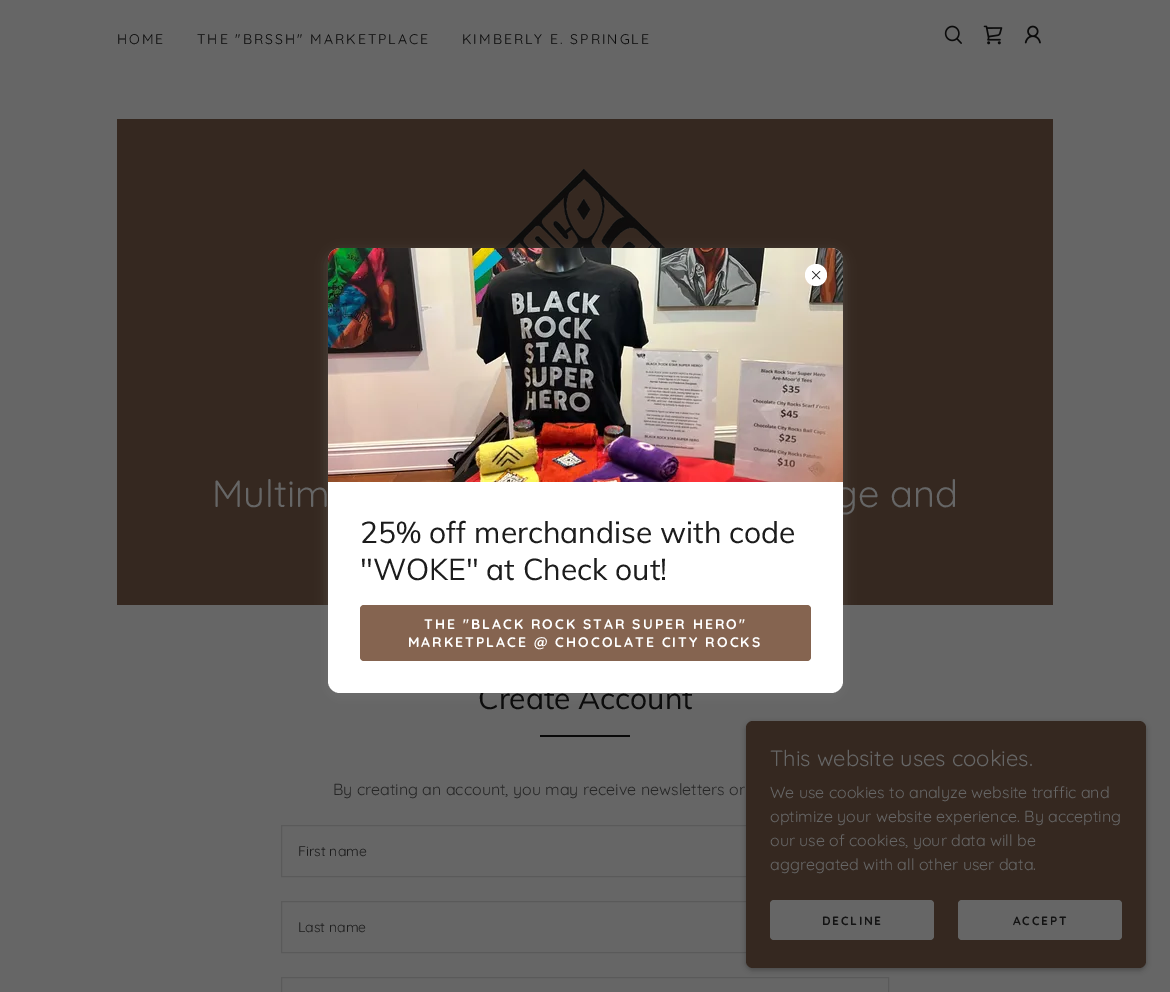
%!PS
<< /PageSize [1170 992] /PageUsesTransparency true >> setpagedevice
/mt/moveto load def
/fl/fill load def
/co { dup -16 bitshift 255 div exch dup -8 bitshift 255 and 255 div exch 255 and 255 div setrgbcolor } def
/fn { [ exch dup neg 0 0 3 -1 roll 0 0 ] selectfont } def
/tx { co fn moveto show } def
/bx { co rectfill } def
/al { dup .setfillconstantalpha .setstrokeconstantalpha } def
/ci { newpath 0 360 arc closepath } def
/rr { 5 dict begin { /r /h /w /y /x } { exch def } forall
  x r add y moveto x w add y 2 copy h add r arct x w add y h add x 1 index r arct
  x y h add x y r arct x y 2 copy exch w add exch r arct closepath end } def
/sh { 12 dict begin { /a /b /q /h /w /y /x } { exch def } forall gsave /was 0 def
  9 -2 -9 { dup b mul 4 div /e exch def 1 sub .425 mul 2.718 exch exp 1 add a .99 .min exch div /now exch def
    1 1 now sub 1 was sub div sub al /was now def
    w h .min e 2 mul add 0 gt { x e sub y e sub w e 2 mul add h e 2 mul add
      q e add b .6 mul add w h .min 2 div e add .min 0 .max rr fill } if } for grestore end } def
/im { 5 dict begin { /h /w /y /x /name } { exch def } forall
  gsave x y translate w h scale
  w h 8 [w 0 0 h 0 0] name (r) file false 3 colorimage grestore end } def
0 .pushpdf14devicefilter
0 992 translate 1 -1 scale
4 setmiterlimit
0 0 1170 992 16#666666 bx
(media/1.raw) 944 25 18 19 im
(media/2.raw) 983 25 20 20 im
(media/3.raw) 1024 25 17 19 im
117 119 936 486 16#352820 bx
(media/4.raw) 505 168 161 80 im
16#757575 co
328 252 515 445 12 6 .4 sh
540 735 90 2 16#090909 bx
16#5A5A5A co
281.5 825.5 607 51 rectstroke
281.5 901.5 607 51 rectstroke
281.5 977.5 607 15 rectstroke
16#000000 co
746 723 400 247 7 3 .3 sh
16#352820 co
746 721 400 247 7 rr fl
16#666666 co
770 900 164 40 4 rr fl
958 900 164 40 4 rr fl
/Quicksand-Regular 14 fn
16#0B0B0B co
117 44 mt 2 0 (HOME) ashow
197 44 mt 2 0 (THE "BRSSH" MARKETPLACE) ashow
462 44 mt 2 0 (KIMBERLY E. SPRINGLE) ashow
(Multim) 212 507 /Quicksand-Regular 38 16#666666 tx
(ge and) 834 507 /Quicksand-Regular 38 16#666666 tx
(Create Account) 478 709 /Muli-Regular 30 16#0B0B0B tx
16#FFFFFF co
328 248 515 445 12 rr fl
(media/6.raw) 328 248 515 234 im
816 275 11 ci fl
(media/5.raw) 812 271 9 9 im
16#856450 co
360 605 451 56 4 rr fl
/Quicksand-Bold 14 fn
16#FFFFFF co
408 647 mt 2 0 (MARKETPLACE @ CHOCOLATE CITY ROCKS) ashow
424 629 mt 2 0 (THE "BLACK ROCK STAR SUPER HERO") ashow
("WOKE" at Check out!) 360 580 /Muli-Regular 30 16#1C1C1C tx
(25% off merchandise with code) 360 543 /Muli-Regular 30 16#1C1C1C tx
(By creating an account, you may receive newsletters or) 333 795 /Quicksand-Regular 16 16#262626 tx
(First name) 298 856 /Quicksand-Regular 14 16#1C1C1C tx
(Last name) 298 932 /Quicksand-Regular 14 16#1C1C1C tx
(This website uses cookies.) 770 766 /Quicksand-Regular 22 16#666666 tx
(We use cookies to analyze website traffic and) 770 798 /Quicksand-Regular 16 16#666666 tx
(optimize your website experience. By accepting) 770 822 /Quicksand-Regular 16 16#666666 tx
(our use of cookies, your data will be) 770 846 /Quicksand-Regular 16 16#666666 tx
(aggregated with all other user data.) 770 870 /Quicksand-Regular 16 16#666666 tx
/Quicksand-Bold 12 fn
16#131313 co
822 925 mt 1.75 0 (DECLINE) ashow
1013 925 mt 1.75 0 (ACCEPT) ashow
.poppdf14devicefilter showpage
